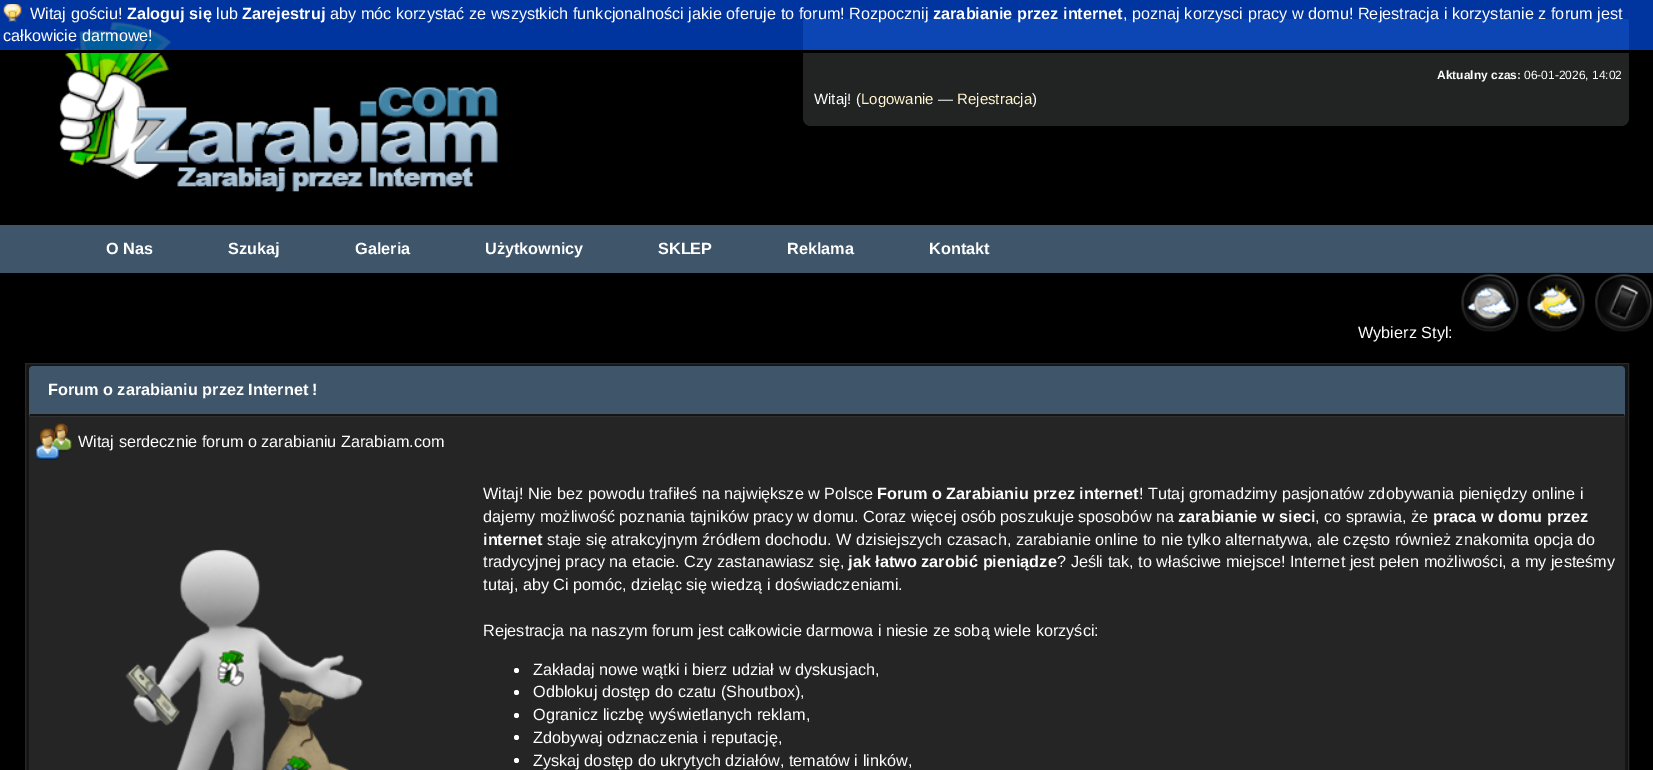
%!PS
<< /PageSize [1653 770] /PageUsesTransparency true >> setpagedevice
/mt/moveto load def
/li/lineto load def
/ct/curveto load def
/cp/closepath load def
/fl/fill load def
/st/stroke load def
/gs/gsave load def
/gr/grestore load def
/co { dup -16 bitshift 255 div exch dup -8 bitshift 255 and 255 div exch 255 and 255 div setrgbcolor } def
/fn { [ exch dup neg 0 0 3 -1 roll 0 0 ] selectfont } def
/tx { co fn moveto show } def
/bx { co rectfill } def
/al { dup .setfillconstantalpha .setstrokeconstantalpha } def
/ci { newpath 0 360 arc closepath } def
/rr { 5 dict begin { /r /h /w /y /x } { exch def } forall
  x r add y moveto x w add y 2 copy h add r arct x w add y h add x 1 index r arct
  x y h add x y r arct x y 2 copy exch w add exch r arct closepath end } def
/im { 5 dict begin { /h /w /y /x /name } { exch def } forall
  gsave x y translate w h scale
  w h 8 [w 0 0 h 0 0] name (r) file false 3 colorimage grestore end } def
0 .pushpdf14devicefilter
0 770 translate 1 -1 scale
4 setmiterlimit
0 0 1653 770 16#000000 bx
(media/2.raw) 59 21 439 171 im
16#222323 co
803 19 mt 1629 19 li 1629 118 li 1629 122.5 1625.5 126 1621 126 ct 811 126 li 806.5 126 803 122.5 803 118 ct cp fl
16#3E556A co
803 19 826 32 2.5 rr fl
0.8 al
0 0 1653 50 16#0041C6 bx
1 al
66 50 1563 3 16#000000 bx
(media/1.raw) 3 4 19 18 im
0 225 1653 48 16#3E556A bx
(media/3.raw) 1461 272 58 60 im
(media/4.raw) 1527 272 59 60 im
(media/5.raw) 1595 272 58 60 im
16#151515 co
25.5 363.5 mt 1628.5 363.5 li 1628.5 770.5 li 25.5 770.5 li cp gs fl gr
16#282828 co
st
16#3E556A co
33 366 mt 1621 366 li 1623 366 1625 368 1625 370 ct 1625 413.5 li 1625 415 1624 416 1622.5 416 ct 31.5 416 li 30 416 29 415 29 413.5 ct 29 370 li 29 368 31 366 33 366 ct cp fl
30 414 1594 2 16#151515 bx
29 417 1596 353 16#252525 bx
29 416 1596 1 16#303030 bx
(media/6.raw) 36 423 36 37 im
(media/7.raw) 125 549 238 221 im
16#FFFFFF co
516.5 670.5 2.5 ci fl
516.5 692.5 2.5 ci fl
516.5 715.5 2.5 ci fl
516.5 737.5 2.5 ci fl
516.5 760.5 2.5 ci fl
(Witaj gościu!) 30 19 /LiberationSans-Regular 16.25 16#FFFFFF tx
(Zaloguj się) 127 19 /LiberationSans-Bold 16.25 16#FFFFFF tx
(lub) 216 19 /LiberationSans-Regular 16.25 16#FFFFFF tx
(Zarejestruj) 242 19 /LiberationSans-Bold 16.25 16#FFFFFF tx
(aby móc korzystać ze wszystkich funkcjonalności jakie oferuje to forum! Rozpocznij) 330 19 /LiberationSans-Regular 16.25 16#FFFFFF tx
(zarabianie przez internet) 933 19 /LiberationSans-Bold 16.25 16#FFFFFF tx
(, poznaj korzysci pracy w domu! Rejestracja i korzystanie z forum jest) 1123 19 /LiberationSans-Regular 16.25 16#FFFFFF tx
(całkowicie darmowe!) 3 41 /LiberationSans-Regular 16.25 16#FFFFFF tx
(Aktualny czas:) 1437 79 /LiberationSans-Bold 12 16#FFFFFF tx
(06-01-2026, 14:02) 1524 79 /LiberationSans-Regular 12 16#FFFFFF tx
(Witaj! \() 814 104 /LiberationSans-Regular 15 16#FFFFFF tx
(Logowanie) 861 104 /LiberationSans-Regular 15 16#FFF5CF tx
(—) 938 104 /LiberationSans-Regular 15 16#FFFFFF tx
(Rejestracja) 957 104 /LiberationSans-Regular 15 16#FFF5CF tx
(\)) 1032 104 /LiberationSans-Regular 15 16#FFFFFF tx
(O Nas) 106 254 /LiberationSans-Bold 16.25 16#FFFFFF tx
(Szukaj) 228 254 /LiberationSans-Bold 16.25 16#FFFFFF tx
(Galeria) 355 254 /LiberationSans-Bold 16.25 16#FFFFFF tx
(Użytkownicy) 485 254 /LiberationSans-Bold 16.25 16#FFFFFF tx
(SKLEP) 658 254 /LiberationSans-Bold 16.25 16#FFFFFF tx
(Reklama) 787 254 /LiberationSans-Bold 16.25 16#FFFFFF tx
(Kontakt) 929 254 /LiberationSans-Bold 16.25 16#FFFFFF tx
(Wybierz Styl:) 1358 338 /LiberationSans-Regular 16.25 16#FFFFFF tx
(Forum o zarabianiu przez Internet !) 48 395 /LiberationSans-Bold 16.25 16#FFFFFF tx
(Witaj serdecznie forum o zarabianiu Zarabiam.com) 78 447 /LiberationSans-Regular 16.25 16#FFFFFF tx
(Witaj! Nie bez powodu trafiłeś na największe w Polsce) 483 499 /LiberationSans-Regular 16.25 16#FFFFFF tx
(Forum o Zarabianiu przez internet) 877 499 /LiberationSans-Bold 16.25 16#FFFFFF tx
(! Tutaj gromadzimy pasjonatów zdobywania pieniędzy online i) 1139 499 /LiberationSans-Regular 16.25 16#FFFFFF tx
(dajemy możliwość poznania tajników pracy w domu. Coraz więcej osób poszukuje sposobów na) 483 522 /LiberationSans-Regular 16.25 16#FFFFFF tx
(zarabianie w sieci) 1178 522 /LiberationSans-Bold 16.25 16#FFFFFF tx
(, co sprawia, że) 1315 522 /LiberationSans-Regular 16.25 16#FFFFFF tx
(praca w domu przez) 1433 522 /LiberationSans-Bold 16.25 16#FFFFFF tx
(internet) 483 545 /LiberationSans-Bold 16.25 16#FFFFFF tx
(staje się atrakcyjnym źródłem dochodu. W dzisiejszych czasach, zarabianie online to nie tylko alternatywa, ale często również znakomita opcja do) 547 545 /LiberationSans-Regular 16.25 16#FFFFFF tx
(tradycyjnej pracy na etacie. Czy zastanawiasz się,) 483 567 /LiberationSans-Regular 16.25 16#FFFFFF tx
(jak łatwo zarobić pieniądze) 848 567 /LiberationSans-Bold 16.25 16#FFFFFF tx
(? Jeśli tak, to właściwe miejsce! Internet jest pełen możliwości, a my jesteśmy) 1057 567 /LiberationSans-Regular 16.25 16#FFFFFF tx
(tutaj, aby Ci pomóc, dzieląc się wiedzą i doświadczeniami.) 483 590 /LiberationSans-Regular 16.25 16#FFFFFF tx
(Rejestracja na naszym forum jest całkowicie darmowa i niesie ze sobą wiele korzyści:) 483 636 /LiberationSans-Regular 16.25 16#FFFFFF tx
(Zakładaj nowe wątki i bierz udział w dyskusjach,) 533 675 /LiberationSans-Regular 16.25 16#FFFFFF tx
(Odblokuj dostęp do czatu \(Shoutbox\),) 533 697 /LiberationSans-Regular 16.25 16#FFFFFF tx
(Ogranicz liczbę wyświetlanych reklam,) 533 720 /LiberationSans-Regular 16.25 16#FFFFFF tx
(Zdobywaj odznaczenia i reputację,) 533 743 /LiberationSans-Regular 16.25 16#FFFFFF tx
(Zyskaj dostęp do ukrytych działów, tematów i linków,) 533 766 /LiberationSans-Regular 16.25 16#FFFFFF tx
.poppdf14devicefilter showpage
